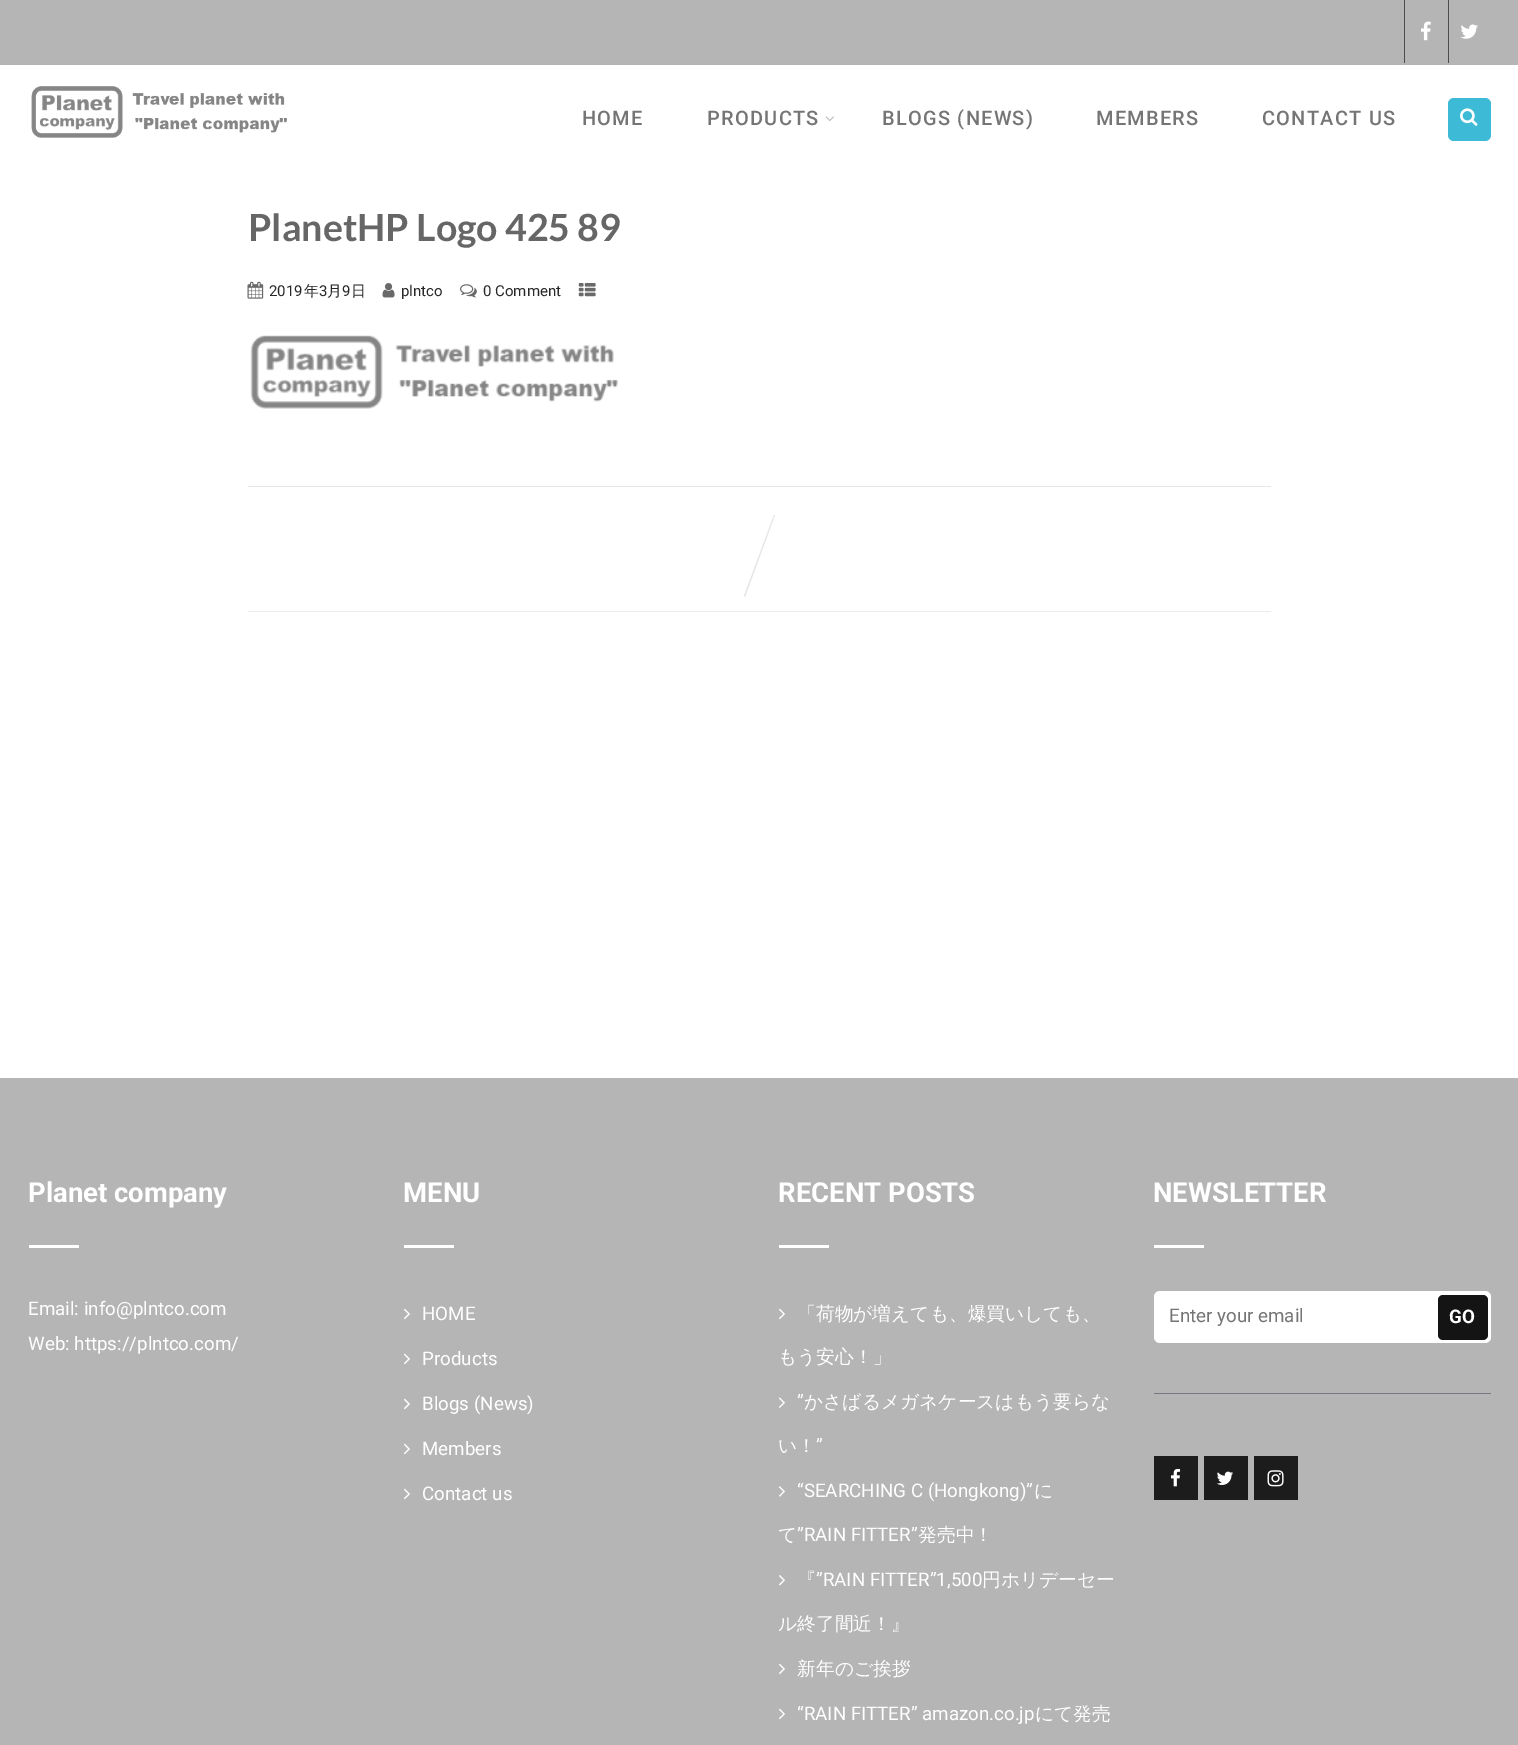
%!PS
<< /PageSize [1518 1745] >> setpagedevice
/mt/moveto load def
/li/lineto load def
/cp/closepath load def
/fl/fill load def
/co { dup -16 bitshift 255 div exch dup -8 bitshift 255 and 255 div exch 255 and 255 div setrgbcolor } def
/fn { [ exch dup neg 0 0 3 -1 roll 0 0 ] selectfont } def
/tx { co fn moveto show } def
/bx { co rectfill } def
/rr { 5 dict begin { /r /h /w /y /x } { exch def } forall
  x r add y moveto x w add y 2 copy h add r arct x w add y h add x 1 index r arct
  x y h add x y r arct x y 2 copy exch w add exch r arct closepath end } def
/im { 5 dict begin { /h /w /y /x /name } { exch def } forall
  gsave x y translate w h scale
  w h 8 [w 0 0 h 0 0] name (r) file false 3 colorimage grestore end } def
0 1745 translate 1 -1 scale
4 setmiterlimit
0 0 1518 1745 16#FFFFFF bx
0 0 1518 65 16#B5B5B5 bx
1404 0 1 63 16#4C4C4C bx
(media/1.raw) 1421 21 10 20 im
1448 0 1 63 16#4C4C4C bx
(media/2.raw) 1460 24 18 15 im
(media/3.raw) 31 86 256 52 im
(media/4.raw) 825 116 9 6 im
16#3DBAD5 co
1448 98 43 43 6 rr fl
(media/5.raw) 1460 108 18 18 im
(media/6.raw) 247 281 17 18 im
(media/7.raw) 382 283 13 15 im
(media/8.raw) 460 284 17 14 im
(media/9.raw) 578 283 18 14 im
(media/10.raw) 250 335 368 74 im
248 486 1023 1 16#E6E6E6 bx
248 611 1023 1 16#EBEBEB bx
16#E6E6E6 co
774 515 mt 775 515 li 745 597 li 744 596 li cp fl
0 1078 1518 667 16#B5B5B5 bx
29 1245 50 3 16#FFFFFF bx
404 1245 50 3 16#FFFFFF bx
(media/11.raw) 404 1308 6 12 im
(media/11.raw) 404 1353 6 12 im
(media/11.raw) 404 1398 6 12 im
(media/11.raw) 404 1443 6 12 im
(media/11.raw) 404 1488 6 12 im
779 1245 50 3 16#FFFFFF bx
(media/11.raw) 779 1308 6 12 im
(media/12.raw) 779 1397 6 11 im
(media/13.raw) 779 1486 6 11 im
(media/14.raw) 779 1575 6 11 im
(media/11.raw) 779 1663 6 12 im
(media/11.raw) 779 1708 6 12 im
1154 1245 50 3 16#FFFFFF bx
1154 1393 337 1 16#75787E bx
16#FFFFFF co
1154 1291 337 52 6 rr fl
16#141414 co
1438 1295 50 45 5 rr fl
1154 1456 44 44 16#1C1C1C bx
(media/15.raw) 1171 1468 10 19 im
1204 1456 44 44 16#1C1C1C bx
(media/16.raw) 1216 1471 17 14 im
1254 1456 44 44 16#1C1C1C bx
(media/17.raw) 1267 1470 17 17 im
/Roboto-Medium 20 fn
16#757575 co
582 125 mt 1.25 0 (HOME) ashow
707 125 mt 1.25 0 (PRODUCTS) ashow
882 125 mt 1.25 0 (BLOGS \(NEWS\)) ashow
1096 125 mt 1.25 0 (MEMBERS) ashow
1262 125 mt 1.25 0 (CONTACT US) ashow
(PlanetHP Logo 425 89) 248 241 /Lato-Bold 37.5 16#666666 tx
(2019) 269 296 /Roboto-Regular 15 16#282828 tx
(年) 304 296 /WenQuanYiZenHei-Medium 15 16#282828 tx
(3) 319 296 /Roboto-Regular 15 16#282828 tx
(月) 327 296 /WenQuanYiZenHei-Medium 15 16#282828 tx
(9) 342 296 /Roboto-Regular 15 16#282828 tx
(日) 351 296 /WenQuanYiZenHei-Medium 15 16#282828 tx
(plntco) 401 296 /Roboto-Regular 15 16#282828 tx
(0 Comment) 483 296 /Roboto-Regular 15 16#282828 tx
(Planet company) 28 1202 /Roboto-Bold 27.5 16#FFFFFF tx
(Email: info@plntco.com) 28 1315 /Roboto-Regular 18.75 16#FFFFFF tx
(Web: https://plntco.com/) 28 1350 /Roboto-Regular 18.75 16#FFFFFF tx
(MENU) 403 1202 /Roboto-Bold 27.5 16#FFFFFF tx
(HOME) 422 1320 /Roboto-Regular 18.75 16#FFFFFF tx
(Products) 422 1365 /Roboto-Regular 18.75 16#FFFFFF tx
(Blogs \(News\)) 422 1410 /Roboto-Regular 18.75 16#FFFFFF tx
(Members) 422 1455 /Roboto-Regular 18.75 16#FFFFFF tx
(Contact us) 422 1500 /Roboto-Regular 18.75 16#FFFFFF tx
(RECENT POSTS) 778 1202 /Roboto-Bold 27.5 16#FFFFFF tx
(「荷物が増えても、爆買いしても、) 797 1320 /WenQuanYiZenHei-Medium 18.75 16#FFFFFF tx
(もう安心！」) 778 1363 /WenQuanYiZenHei-Medium 18.75 16#FFFFFF tx
(”) 797 1408 /Roboto-Regular 18.75 16#FFFFFF tx
(かさばるメガネケースはもう要らな) 804 1408 /WenQuanYiZenHei-Medium 18.75 16#FFFFFF tx
(い！) 778 1452 /WenQuanYiZenHei-Medium 18.75 16#FFFFFF tx
(”) 816 1452 /Roboto-Regular 18.75 16#FFFFFF tx
(“SEARCHING C \(Hongkong\)”) 797 1497 /Roboto-Regular 18.75 16#FFFFFF tx
(に) 1034 1497 /WenQuanYiZenHei-Medium 18.75 16#FFFFFF tx
(て) 778 1541 /WenQuanYiZenHei-Medium 18.75 16#FFFFFF tx
(”RAIN FITTER”) 797 1541 /Roboto-Regular 18.75 16#FFFFFF tx
(発売中！) 918 1541 /WenQuanYiZenHei-Medium 18.75 16#FFFFFF tx
(『) 797 1586 /WenQuanYiZenHei-Medium 18.75 16#FFFFFF tx
(”RAIN FITTER”1,500) 816 1586 /Roboto-Regular 18.75 16#FFFFFF tx
(円ホリデーセー) 982 1586 /WenQuanYiZenHei-Medium 18.75 16#FFFFFF tx
(ル終了間近！』) 778 1630 /WenQuanYiZenHei-Medium 18.75 16#FFFFFF tx
(新年のご挨拶) 797 1675 /WenQuanYiZenHei-Medium 18.75 16#FFFFFF tx
(“RAIN FITTER” amazon.co.jp) 797 1720 /Roboto-Regular 18.75 16#FFFFFF tx
(にて発売) 1035 1720 /WenQuanYiZenHei-Medium 18.75 16#FFFFFF tx
(NEWSLETTER) 1153 1202 /Roboto-Bold 27.5 16#FFFFFF tx
(Enter your email) 1169 1322 /Roboto-Regular 18.75 16#757575 tx
(GO) 1449 1323 /Roboto-Bold 18.75 16#FFFFFF tx
showpage
